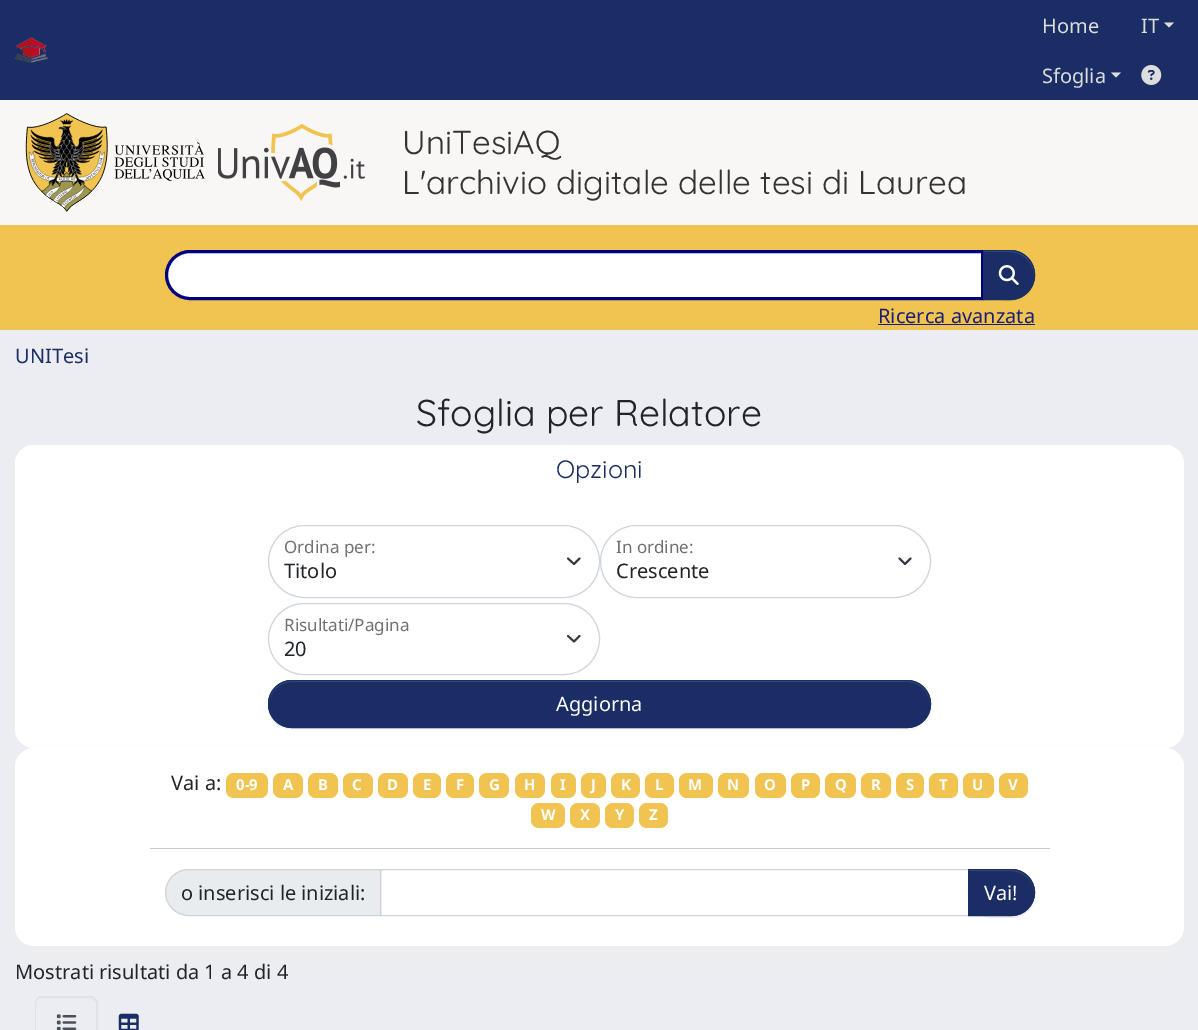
%!PS
<< /PageSize [1198 1030] /PageUsesTransparency true >> setpagedevice
/mt/moveto load def
/li/lineto load def
/ct/curveto load def
/cp/closepath load def
/fl/fill load def
/st/stroke load def
/gs/gsave load def
/gr/grestore load def
/lw/setlinewidth load def
/co { dup -16 bitshift 255 div exch dup -8 bitshift 255 and 255 div exch 255 and 255 div setrgbcolor } def
/fn { [ exch dup neg 0 0 3 -1 roll 0 0 ] selectfont } def
/tx { co fn moveto show } def
/bx { co rectfill } def
/al { dup .setfillconstantalpha .setstrokeconstantalpha } def
/rr { 5 dict begin { /r /h /w /y /x } { exch def } forall
  x r add y moveto x w add y 2 copy h add r arct x w add y h add x 1 index r arct
  x y h add x y r arct x y 2 copy exch w add exch r arct closepath end } def
/sh { 12 dict begin { /a /b /q /h /w /y /x } { exch def } forall gsave /was 0 def
  9 -2 -9 { dup b mul 4 div /e exch def 1 sub .425 mul 2.718 exch exp 1 add a .99 .min exch div /now exch def
    1 1 now sub 1 was sub div sub al /was now def
    w h .min e 2 mul add 0 gt { x e sub y e sub w e 2 mul add h e 2 mul add
      q e add b .6 mul add w h .min 2 div e add .min 0 .max rr fill } if } for grestore end } def
/im { 5 dict begin { /h /w /y /x /name } { exch def } forall
  gsave x y translate w h scale
  w h 8 [w 0 0 h 0 0] name (r) file false 3 colorimage grestore end } def
0 .pushpdf14devicefilter
0 1030 translate 1 -1 scale
4 setmiterlimit
0 0 1198 1030 16#ECEDF2 bx
0 0 1198 100 16#1A2E65 bx
(media/1.raw) 15 37 33 26 im
16#DDDDDD co
1111 72.5 mt 1121 72.5 li 1116 77.5 li cp fl
1164 22.5 mt 1174 22.5 li 1169 27.5 li cp fl
(media/2.raw) 1141 65 21 20 im
0 100 1198 125 16#F9F7F5 bx
(media/3.raw) 25 113 180 99 im
(media/4.raw) 218 124 147 77 im
0 225 1198 105 16#F1C350 bx
16#FFFFFF co
190 251.5 mt 982.5 251.5 li 982.5 298.5 li 190 298.5 li 177 298.5 166.5 288 166.5 275 ct 166.5 262 177 251.5 190 251.5 ct cp gs fl gr
16#000080 co
3 lw
st
16#000000 co
983 251 52 50 25 .5 .07 sh
16#1A2E65 co
983 250 mt 1010 250 li 1024 250 1035 261 1035 275 ct 1035 289 1024 300 1010 300 ct 983 300 li cp fl
16#3C4D7C co
984 252 mt 1010 252 li 1023 252 1034 263 1034 276 ct 1034 275 li 1034 262 1023 251 1010 251 ct 984 251 li cp fl
16#1A2E65 co
1 lw
983.5 250.5 mt 1010 250.5 li 1023.5 250.5 1034.5 261.5 1034.5 275 ct 1034.5 288.5 1023.5 299.5 1010 299.5 ct 983.5 299.5 li cp st
(media/5.raw) 998 265 21 20 im
878 324 157 1 16#191F79 bx
16#FFFFFF co
15 445 1169 303 19 rr fl
34 445 mt 1165 445 li 1175.5 445 1184 453.5 1184 464 ct 1184 505 li 15 505 li 15 464 li 15 453.5 23.5 445 34 445 ct cp fl
16#343A40 co
1.9 lw
1 setlinecap
1 setlinejoin
568 558.5 mt 574 564 li 579.5 558.5 li st
16#CED4DA co
1 lw
0 setlinecap
0 setlinejoin
268.5 525.5 331 72 36 rr st
16#343A40 co
1.9 lw
1 setlinecap
1 setlinejoin
899.5 558.5 mt 905 564 li 910.5 558.5 li st
16#CED4DA co
1 lw
0 setlinecap
0 setlinejoin
600.5 525.5 330 72 36 rr st
16#343A40 co
1.9 lw
1 setlinecap
1 setlinejoin
568 636 mt 574 641.5 li 579.5 636 li st
16#CED4DA co
1 lw
0 setlinecap
0 setlinejoin
268.5 603.5 331 71 35.5 rr st
16#000000 co
268 681 663 48 24 .5 .07 sh
16#1A2E65 co
268 680 663 48 24 rr fl
16#3C4D7C co
291 682 mt 908 682 li 920 682 930 693 930 704 ct 930 691 920 681 908 681 ct 292 681 li 279 681 269 691 269 704 ct 269 693 279 682 291 682 ct cp fl
16#1A2E65 co
268.5 680.5 662 47 23.5 rr st
16#EEEEEE co
19 764 1161 191 15 9.5 1 sh
16#FFFFFF co
15 748 1169 198 19 rr fl
16#F1C350 co
226 773 42 25 8 rr fl
273 773 30 25 8 rr fl
308 773 30 25 8 rr fl
343 773 30 25 8 rr fl
378 773 30 25 8 rr fl
413 773 28 25 8 rr fl
446 773 28 25 8 rr fl
479 773 30 25 8 rr fl
515 773 30 25 8 rr fl
551 773 25 25 8 rr fl
581 773 25 25 8 rr fl
611 773 29 25 8 rr fl
645 773 29 25 8 rr fl
679 773 34 25 8 rr fl
718 773 31 25 8 rr fl
755 773 31 25 8 rr fl
791 773 29 25 8 rr fl
825 773 31 25 8 rr fl
861 773 30 25 8 rr fl
896 773 28 25 8 rr fl
929 773 29 25 8 rr fl
963 773 31 25 8 rr fl
999 773 29 25 8 rr fl
531 803 34 25 8 rr fl
570 803 30 25 8 rr fl
605 803 29 25 8 rr fl
639 803 29 25 8 rr fl
150 848 900 1 16#C8C9CA bx
16#E9ECEF co
188.5 869.5 mt 380.5 869.5 li 380.5 915.5 li 188.5 915.5 li 176 915.5 165.5 905 165.5 892.5 ct 165.5 880 176 869.5 188.5 869.5 ct cp gs fl gr
16#CED4DA co
st
380.5 869.5 588 46 rectstroke
16#000000 co
968 870 67 48 24 .5 .07 sh
16#1A2E65 co
968 869 mt 1011.5 869 li 1024.5 869 1035 879.5 1035 892.5 ct 1035 905.5 1024.5 916 1011.5 916 ct 968 916 li cp fl
16#3C4D7C co
969 871 mt 1011 871 li 1024 871 1034 881 1034 893 ct 1034 882 1027 873 1016 870 ct 969 870 li cp fl
16#1A2E65 co
968.5 869.5 mt 1011.5 869.5 li 1024 869.5 1034.5 880 1034.5 892.5 ct 1034.5 905 1024 915.5 1011.5 915.5 ct 968.5 915.5 li cp st
16#DEE2E6 co
42 998 mt 41 998 39 998 38 999 ct 37 998 li 40 996 li 92 996 li 95 998 li 94 1000 li 93 999 92 998 90 998 ct cp fl
95 998 mt 98 1001 li 98 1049 li 96 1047 li 96 1004 li 96 1002 95 1001 94 1000 ct cp 35 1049 mt 36 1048 li 36 1004 li 36 1002 37 1000 38 999 ct 37 998 li 36 1000 35 1002 35 1004 ct cp fl
(media/6.raw) 56 1014 21 16 im
(media/7.raw) 118 1013 21 17 im
(Home) 1042 33 /NotoSans-Regular 20 16#DDDDDD tx
(Sfoglia) 1042 83 /NotoSans-Regular 20 16#DDDDDD tx
(IT) 1141 33 /NotoSans-Regular 20 16#DDDDDD tx
(UniTesiAQ) 402 154 /Quicksand-Regular 33.2 16#343434 tx
(L'archivio digitale delle tesi di Laurea) 402 194 /Quicksand-Regular 33.2 16#343434 tx
(Ricerca avanzata) 878 323 /NotoSans-Regular 20 16#191F79 tx
(UNITesi) 15 363 /NotoSans-Regular 20 16#1A2E65 tx
(Sfoglia per Relatore) 416 426 /Quicksand-Regular 37.25 16#212529 tx
(Opzioni) 556 478 /Quicksand-Regular 25 16#1A2E65 tx
(Ordina per:) 284 553 /NotoSans-Regular 17 16#6F7174 tx
(Titolo) 284 578 /NotoSans-Regular 20 16#212529 tx
(In ordine:) 616 553 /NotoSans-Regular 17 16#6F7174 tx
(Crescente) 616 578 /NotoSans-Regular 20 16#212529 tx
(Risultati/Pagina) 284 631 /NotoSans-Regular 17 16#6F7174 tx
(20) 284 656 /NotoSans-Regular 20 16#212529 tx
(Aggiorna) 556 711 /NotoSans-Regular 20 16#FFFFFF tx
(Vai a:) 171 790 /NotoSans-Regular 20 16#212529 tx
(0-9) 236 790 /NotoSans-Bold 15 16#FFFFFF tx
(A) 283 790 /NotoSans-Bold 15 16#FFFFFF tx
(B) 318 790 /NotoSans-Bold 15 16#FFFFFF tx
(C) 352 790 /NotoSans-Bold 15 16#FFFFFF tx
(D) 387 790 /NotoSans-Bold 15 16#FFFFFF tx
(E) 423 790 /NotoSans-Bold 15 16#FFFFFF tx
(F) 456 790 /NotoSans-Bold 15 16#FFFFFF tx
(G) 489 790 /NotoSans-Bold 15 16#FFFFFF tx
(H) 524 790 /NotoSans-Bold 15 16#FFFFFF tx
(I) 560 790 /NotoSans-Bold 15 16#FFFFFF tx
(J) 591 790 /NotoSans-Bold 15 16#FFFFFF tx
(K) 621 790 /NotoSans-Bold 15 16#FFFFFF tx
(L) 655 790 /NotoSans-Bold 15 16#FFFFFF tx
(M) 688 790 /NotoSans-Bold 15 16#FFFFFF tx
(N) 727 790 /NotoSans-Bold 15 16#FFFFFF tx
(O) 764 790 /NotoSans-Bold 15 16#FFFFFF tx
(P) 801 790 /NotoSans-Bold 15 16#FFFFFF tx
(Q) 835 790 /NotoSans-Bold 15 16#FFFFFF tx
(R) 871 790 /NotoSans-Bold 15 16#FFFFFF tx
(S) 906 790 /NotoSans-Bold 15 16#FFFFFF tx
(T) 939 790 /NotoSans-Bold 15 16#FFFFFF tx
(U) 972 790 /NotoSans-Bold 15 16#FFFFFF tx
(V) 1008 790 /NotoSans-Bold 15 16#FFFFFF tx
(W) 541 820 /NotoSans-Bold 15 16#FFFFFF tx
(X) 580 820 /NotoSans-Bold 15 16#FFFFFF tx
(Y) 615 820 /NotoSans-Bold 15 16#FFFFFF tx
(Z) 649 820 /NotoSans-Bold 15 16#FFFFFF tx
(o inserisci le iniziali:) 181 900 /NotoSans-Regular 20 16#212529 tx
(Vai!) 984 900 /NotoSans-Regular 20 16#FFFFFF tx
(Mostrati risultati da 1 a 4 di 4) 15 979 /NotoSans-Regular 20 16#212529 tx
.poppdf14devicefilter showpage
